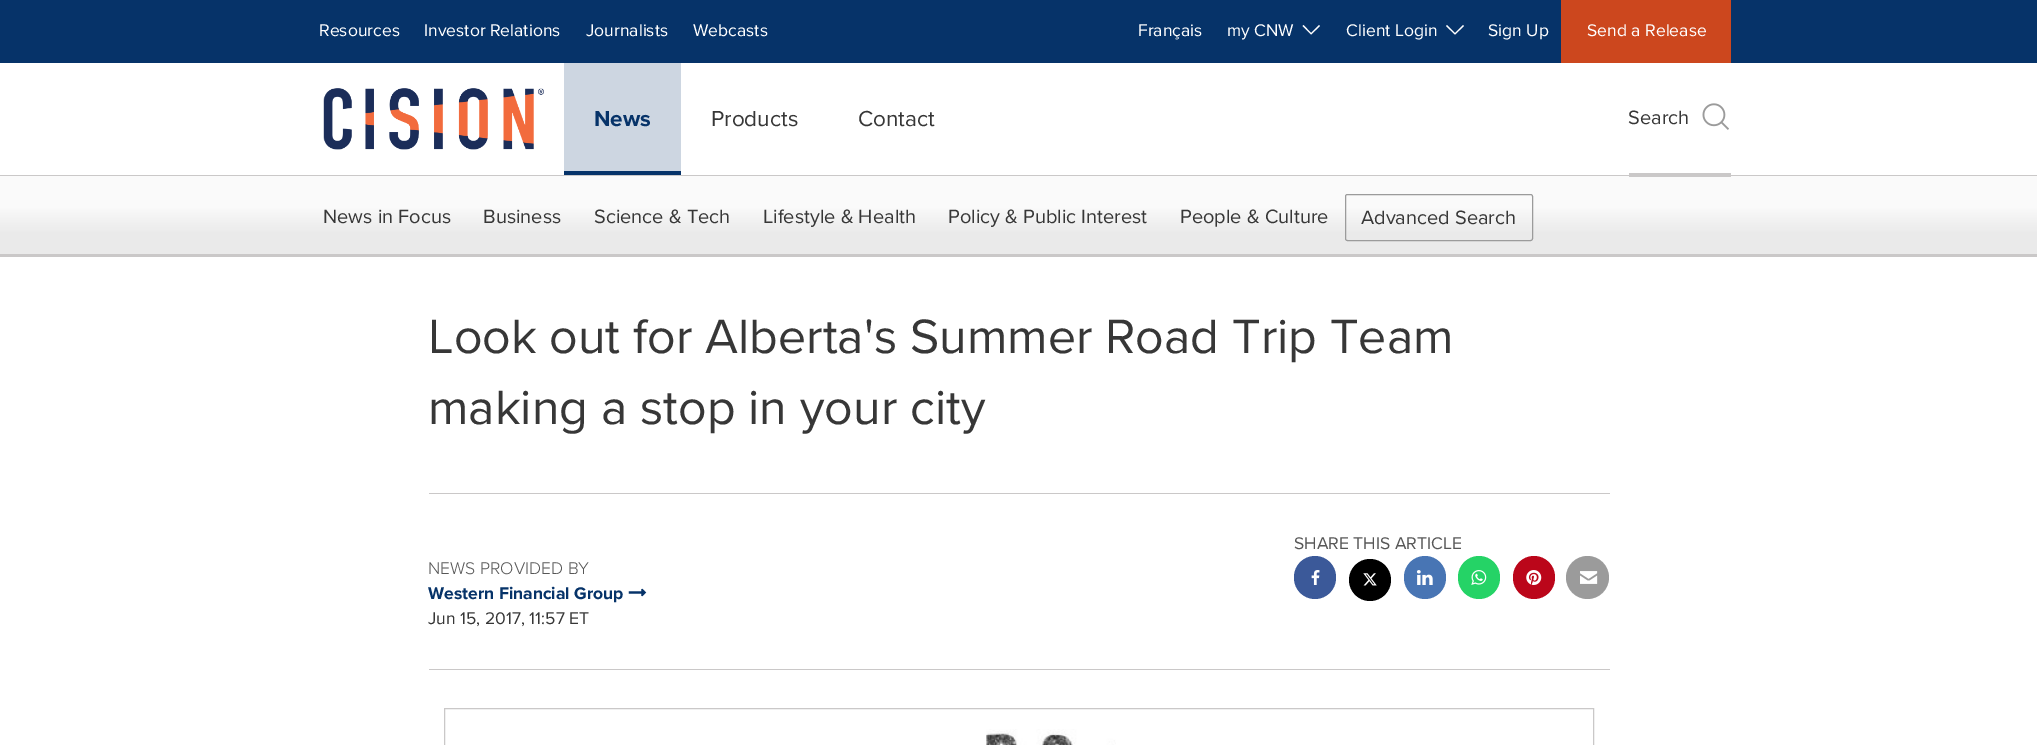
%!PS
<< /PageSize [2037 745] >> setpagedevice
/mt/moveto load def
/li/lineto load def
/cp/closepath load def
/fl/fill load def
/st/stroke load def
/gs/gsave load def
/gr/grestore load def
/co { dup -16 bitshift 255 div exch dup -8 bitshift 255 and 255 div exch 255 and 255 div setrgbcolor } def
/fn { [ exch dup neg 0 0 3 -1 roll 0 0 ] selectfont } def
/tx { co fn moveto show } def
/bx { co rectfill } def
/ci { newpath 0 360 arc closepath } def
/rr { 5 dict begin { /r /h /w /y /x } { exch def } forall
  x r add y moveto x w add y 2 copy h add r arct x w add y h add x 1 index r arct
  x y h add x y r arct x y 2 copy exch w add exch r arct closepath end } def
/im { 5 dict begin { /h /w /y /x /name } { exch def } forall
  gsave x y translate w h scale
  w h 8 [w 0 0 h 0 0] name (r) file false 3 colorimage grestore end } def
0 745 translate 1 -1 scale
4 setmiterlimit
0 0 2037 745 16#FFFFFF bx
0 0 2037 63 16#063369 bx
16#FFFFFF co
1311 34.5 mt 1302.5 26 li 1303.5 25 li 1311 33 li 1319 25 li 1320 26 li cp fl
1455 34.5 mt 1446 26 li 1447 25 li 1455 33 li 1463 25 li 1464 26 li cp fl
1561 0 170 63 16#CC471E bx
0 175 2037 1 16#CAC8C8 bx
(media/1.raw) 323 88 221 62 im
564 63 117 108 16#CDD6E1 bx
564 171 117 4 16#063369 bx
gs 0 176 mt 2037 176 li 2037 254 li 0 254 li cp clip newpath
<< /ShadingType 2 /ColorSpace /DeviceRGB /Coords [1019 176 1019 254] /Extend [true true] /Function << /FunctionType 3 /Domain [0 1] /Functions [<< /FunctionType 2 /Domain [0 1] /C0 [.98 .98 .98] /C1 [.98 .98 .98] /N 1 >> << /FunctionType 2 /Domain [0 1] /C0 [.98 .98 .98] /C1 [.918 .918 .918] /N 1 >> << /FunctionType 2 /Domain [0 1] /C0 [.918 .918 .918] /C1 [.918 .918 .918] /N 1 >>] /Bounds [.4 .74] /Encode [0 1 0 1 0 1] >> >> shfill gr
1629 173 102 4 16#CAC8C8 bx
(media/2.raw) 1702 103 27 27 im
0 254 2037 3 16#CAC8C8 bx
16#9B9B9B co
1345.5 194.5 187 46 2 rr st
429 493 1181 1 16#CAC8C8 bx
16#3B5999 co
1294 556 42 43 21 rr fl
(media/3.raw) 1311 570 9 15 im
16#000000 co
1370 580 21 ci fl
(media/4.raw) 1363 573 14 13 im
16#4875B4 co
1404 556 42 43 21 rr fl
(media/5.raw) 1416 570 17 15 im
16#25D366 co
1458 556 42 43 21 rr fl
(media/6.raw) 1471 570 16 15 im
16#BB061A co
1513 556 42 43 21 rr fl
(media/7.raw) 1526 570 16 15 im
16#9B9B9B co
1587.5 577.5 21.5 ci fl
(media/8.raw) 1580 571 18 13 im
(media/9.raw) 628 588 19 9 im
429 669 1181 1 16#CAC8C8 bx
444.5 708.5 1149 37 rectstroke
(media/10.raw) 986 729 130 16 im
(Resources) 319 36 /ProximaNova-Regular 17.5 16#FFFFFF tx
(Investor Relations) 424 36 /ProximaNova-Regular 17.5 16#FFFFFF tx
(Journalists) 586 36 /ProximaNova-Regular 17.5 16#FFFFFF tx
(Webcasts) 693 36 /ProximaNova-Regular 17.5 16#FFFFFF tx
(Français) 1138 36 /ProximaNova-Regular 17.5 16#FFFFFF tx
(my CNW) 1227 36 /ProximaNova-Regular 17.5 16#FFFFFF tx
(Client Login) 1346 36 /ProximaNova-Regular 17.5 16#FFFFFF tx
(Sign Up) 1488 36 /ProximaNova-Regular 17.5 16#FFFFFF tx
(Send a Release) 1587 36 /ProximaNova-Regular 17.5 16#FFFFFF tx
(News) 594 126 /ProximaNova-Bold 22.5 16#063369 tx
(Products) 711 126 /ProximaNova-Regular 22.5 16#373737 tx
(Contact) 858 126 /ProximaNova-Regular 22.5 16#373737 tx
(Search) 1628 124 /ProximaNova-Regular 20 16#373737 tx
(News in Focus) 323 223 /ProximaNova-Regular 20 16#373737 tx
(Business) 483 223 /ProximaNova-Regular 20 16#373737 tx
(Science & Tech) 594 223 /ProximaNova-Regular 20 16#373737 tx
(Lifestyle & Health) 763 223 /ProximaNova-Regular 20 16#373737 tx
(Policy & Public Interest) 948 223 /ProximaNova-Regular 20 16#373737 tx
(People & Culture) 1180 223 /ProximaNova-Regular 20 16#373737 tx
(Advanced Search) 1361 224 /ProximaNova-Regular 20 16#373737 tx
(Look out for Alberta's Summer Road Trip Team) 428 353 /ProximaNova-Regular 50 16#373737 tx
(making a stop in your city) 428 424 /ProximaNova-Regular 50 16#373737 tx
(SHARE THIS ARTICLE) 1294 549 /ProximaNova-Regular 17.5 16#575757 tx
(NEWS PROVIDED BY) 428 574 /ProximaNova-Light 17.5 16#575757 tx
(Western Financial Group) 428 599 /ProximaNova-Bold 17.5 16#063369 tx
(Jun 15, 2017, 11:57 ET) 428 624 /ProximaNova-Regular 17.5 16#373737 tx
showpage
